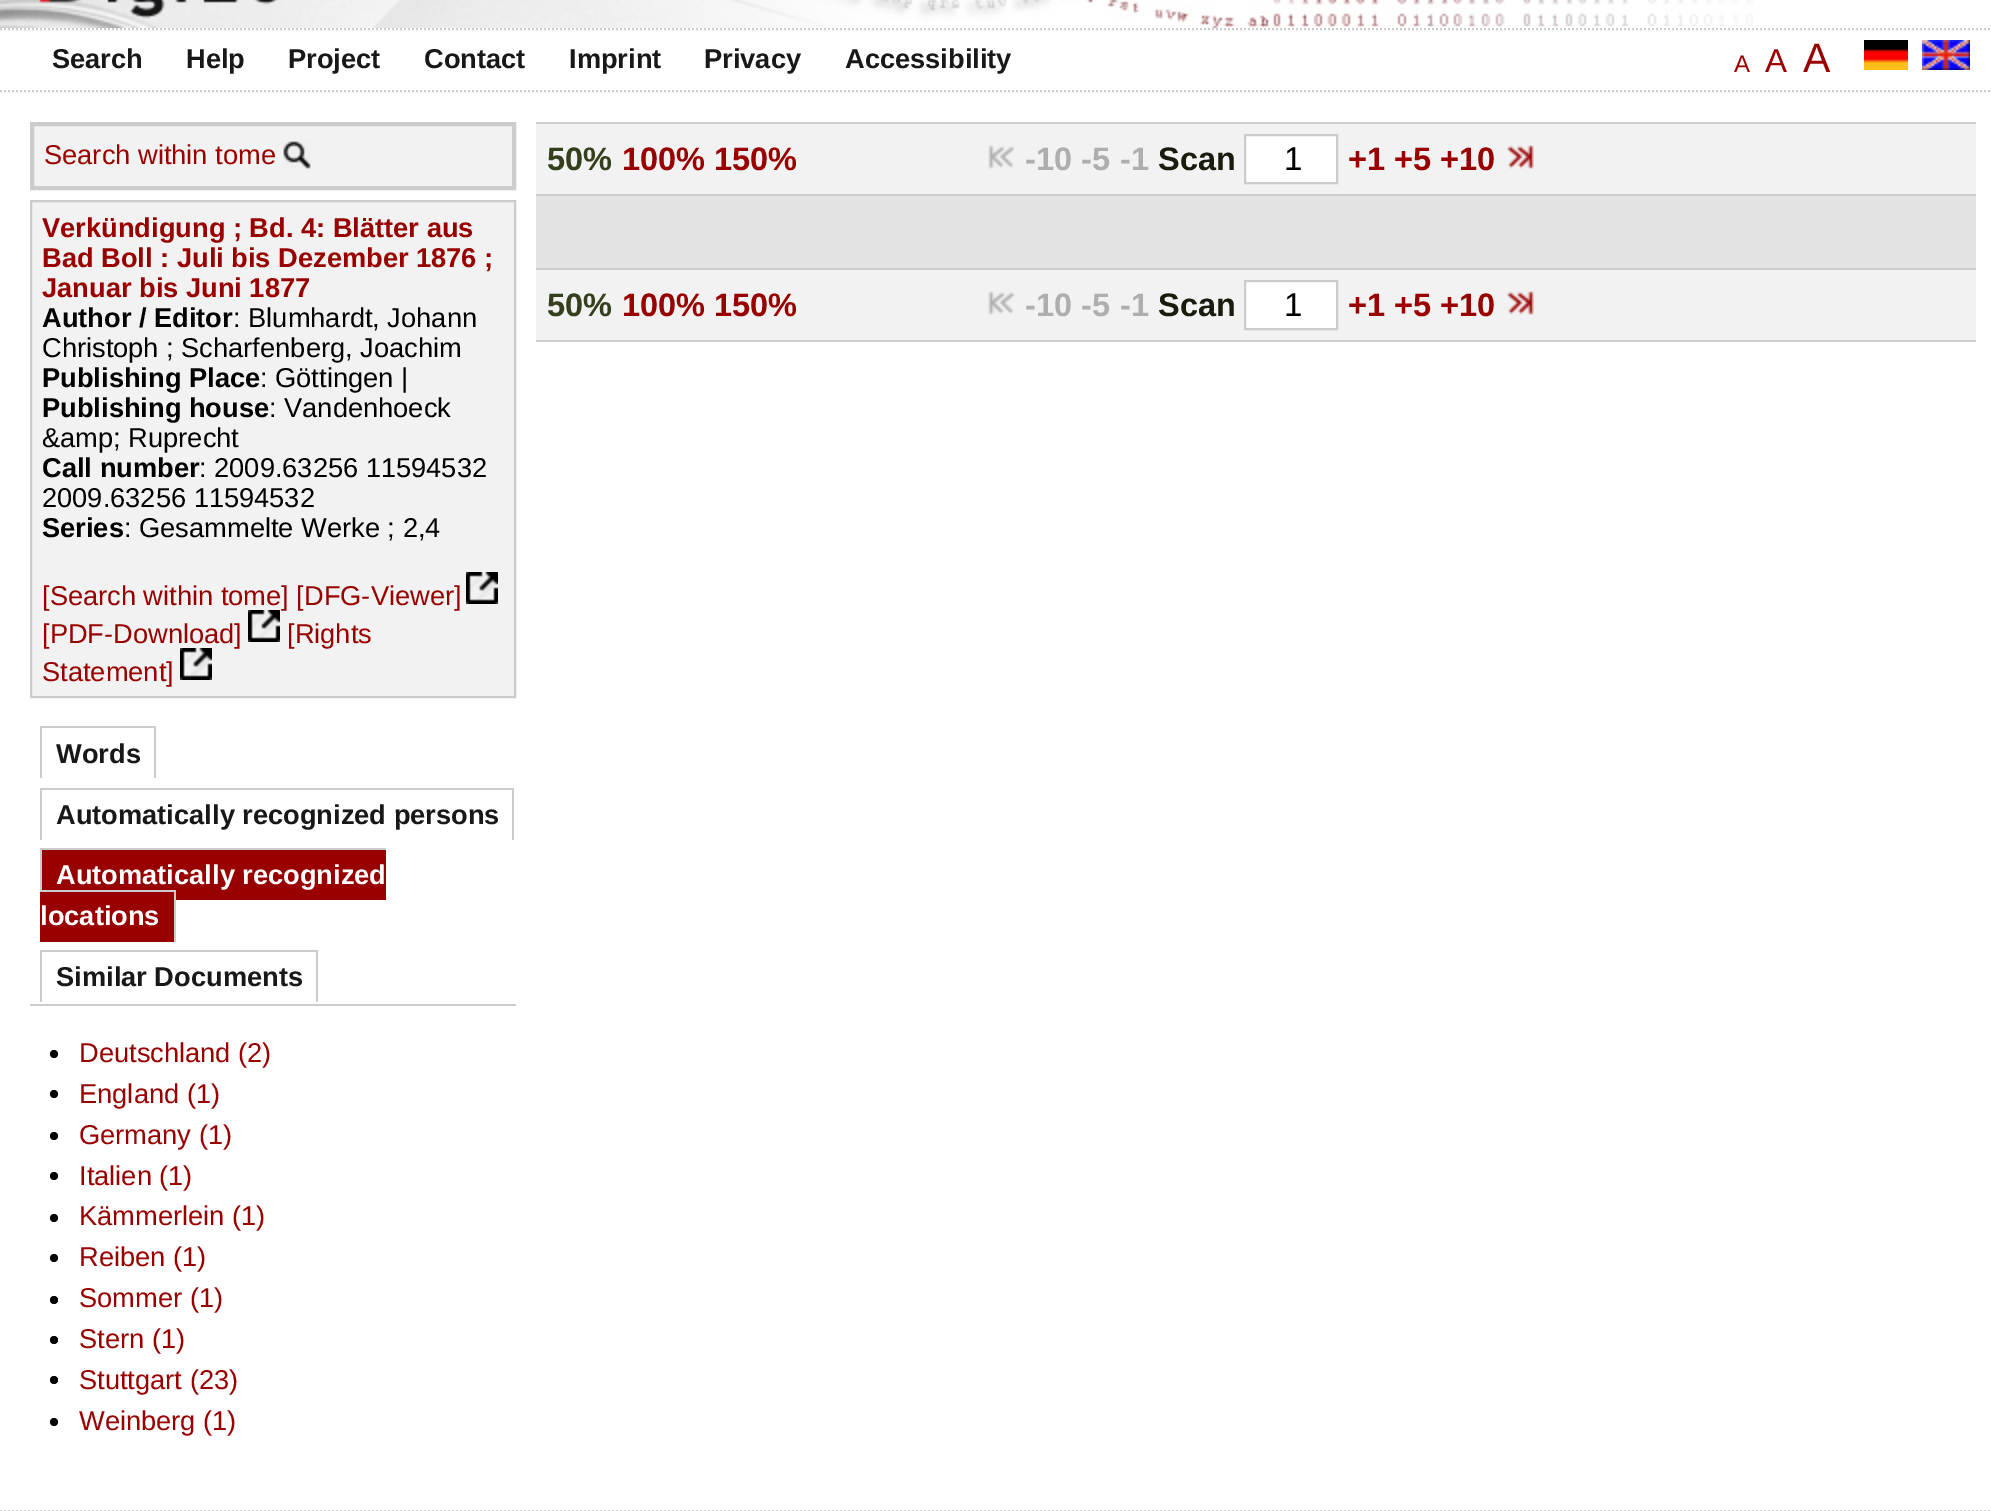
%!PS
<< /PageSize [1991 1511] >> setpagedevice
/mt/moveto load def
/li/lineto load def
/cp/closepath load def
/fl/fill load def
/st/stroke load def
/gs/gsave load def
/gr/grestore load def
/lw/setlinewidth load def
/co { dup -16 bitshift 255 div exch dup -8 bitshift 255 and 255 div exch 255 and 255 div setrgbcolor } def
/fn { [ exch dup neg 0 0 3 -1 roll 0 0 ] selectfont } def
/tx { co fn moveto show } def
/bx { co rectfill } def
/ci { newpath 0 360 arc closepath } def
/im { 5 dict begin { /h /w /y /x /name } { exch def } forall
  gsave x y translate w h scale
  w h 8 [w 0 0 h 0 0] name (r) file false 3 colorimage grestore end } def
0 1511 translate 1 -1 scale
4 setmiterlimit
0 0 1991 1511 16#FFFFFF bx
(media/1.raw) 0 0 1754 28 im
16#CCCCCC co
2 lw
[2 2] 0 setdash
0 29 mt 1990 29 li st
0 91 mt 1990 91 li st
(media/2.raw) 1864 40 44 30 im
(media/3.raw) 1922 40 48 30 im
16#F2F2F2 co
32 124 mt 514 124 li 514 188 li 32 188 li cp gs fl gr
16#CCCCCC co
4 lw
[] 0 setdash
st
(media/4.raw) 283 141 28 28 im
16#F2F2F2 co
31 201 mt 515 201 li 515 697 li 31 697 li cp gs fl gr
16#CCCCCC co
2 lw
st
(media/5.raw) 466 572 32 32 im
30 1004 486 2 16#CCCCCC bx
40 726 116 2 16#CCCCCC bx
154 726 2 52 16#CCCCCC bx
40 726 2 52 16#CCCCCC bx
40 788 474 2 16#CCCCCC bx
512 788 2 52 16#CCCCCC bx
40 788 2 52 16#CCCCCC bx
42 850 344 50 16#990000 bx
40 848 346 2 16#CCCCCC bx
40 848 2 42 16#CCCCCC bx
40 890 136 2 16#CCCCCC bx
40 892 134 50 16#990000 bx
174 890 2 52 16#CCCCCC bx
40 950 278 2 16#CCCCCC bx
316 950 2 52 16#CCCCCC bx
40 950 2 52 16#CCCCCC bx
16#000000 co
54 1054 4 ci fl
54 1094 4 ci fl
54 1136 4 ci fl
54 1176 4 ci fl
54 1218 4 ci fl
54 1258 4 ci fl
54 1300 4 ci fl
54 1340 4 ci fl
54 1380 4 ci fl
54 1422 4 ci fl
536 124 1440 70 16#F2F2F2 bx
536 122 1440 2 16#CCCCCC bx
536 194 1440 2 16#CCCCCC bx
(media/6.raw) 988 145 27 24 im
16#FFFFFF co
1245 135 mt 1337 135 li 1337 183 li 1245 183 li cp gs fl gr
16#CCCCCC co
st
(media/7.raw) 1507 145 27 24 im
536 196 1440 72 16#E3E3E3 bx
536 270 1440 70 16#F2F2F2 bx
536 268 1440 2 16#CCCCCC bx
536 340 1440 2 16#CCCCCC bx
(media/6.raw) 988 291 27 24 im
16#FFFFFF co
1245 281 mt 1337 281 li 1337 329 li 1245 329 li cp gs fl gr
16#CCCCCC co
st
(media/7.raw) 1507 291 27 24 im
[2 2] 0 setdash
0 1511 mt 1990 1511 li st
(Search) 52 68 /LiberationSans-Bold 27.25 16#181818 tx
(Help) 186 68 /LiberationSans-Bold 27.25 16#181818 tx
(Project) 288 68 /LiberationSans-Bold 27.25 16#181818 tx
(Contact) 424 68 /LiberationSans-Bold 27.25 16#181818 tx
(Imprint) 569 68 /LiberationSans-Bold 27.25 16#181818 tx
(Privacy) 704 68 /LiberationSans-Bold 27.25 16#181818 tx
(Accessibility) 845 68 /LiberationSans-Bold 27.25 16#181818 tx
(A) 1734 72 /LiberationSans-Regular 24 16#990000 tx
(A) 1765 72 /LiberationSans-Regular 33 16#990000 tx
(A) 1803 72 /LiberationSans-Regular 41 16#990000 tx
(Search within tome) 44 164 /LiberationSans-Regular 27.25 16#990000 tx
(Verkündigung ; Bd. 4: Blätter aus) 42 237 /LiberationSans-Bold 27.25 16#990000 tx
(Bad Boll : Juli bis Dezember 1876 ;) 42 267 /LiberationSans-Bold 27.25 16#990000 tx
(Januar bis Juni 1877) 42 297 /LiberationSans-Bold 27.25 16#990000 tx
(Author / Editor) 42 327 /LiberationSans-Bold 27.25 16#000000 tx
(: Blumhardt, Johann) 233 327 /LiberationSans-Regular 27.25 16#000000 tx
(Christoph ; Scharfenberg, Joachim) 42 357 /LiberationSans-Regular 27.25 16#000000 tx
(Publishing Place) 42 387 /LiberationSans-Bold 27.25 16#000000 tx
(: Göttingen |) 260 387 /LiberationSans-Regular 27.25 16#000000 tx
(Publishing house) 42 417 /LiberationSans-Bold 27.25 16#000000 tx
(: Vandenhoeck) 269 417 /LiberationSans-Regular 27.25 16#000000 tx
(&amp; Ruprecht) 42 447 /LiberationSans-Regular 27.25 16#000000 tx
(Call number) 42 477 /LiberationSans-Bold 27.25 16#000000 tx
(: 2009.63256 11594532) 199 477 /LiberationSans-Regular 27.25 16#000000 tx
(2009.63256 11594532) 42 507 /LiberationSans-Regular 27.25 16#000000 tx
(Series) 42 537 /LiberationSans-Bold 27.25 16#000000 tx
(: Gesammelte Werke ; 2,4) 124 537 /LiberationSans-Regular 27.25 16#000000 tx
([Search within tome] [DFG-Viewer]) 42 605 /LiberationSans-Regular 27.25 16#990000 tx
([PDF-Download]) 42 643 /LiberationSans-Regular 27.25 16#990000 tx
(media/5.raw) 248 610 32 32 im
([Rights) 287 643 /LiberationSans-Regular 27.25 16#990000 tx
(Statement]) 42 681 /LiberationSans-Regular 27.25 16#990000 tx
(media/5.raw) 180 648 32 32 im
(Words) 56 763 /LiberationSans-Bold 27.25 16#181818 tx
(Automatically recognized persons) 56 824 /LiberationSans-Bold 27.25 16#181818 tx
(Automatically recognized) 56 884 /LiberationSans-Bold 27.25 16#FFFFFF tx
(locations) 40 925 /LiberationSans-Bold 27.25 16#FFFFFF tx
(Similar Documents) 56 986 /LiberationSans-Bold 27.25 16#181818 tx
(Deutschland \(2\)) 79 1062 /LiberationSans-Regular 27.25 16#990000 tx
(England \(1\)) 79 1103 /LiberationSans-Regular 27.25 16#990000 tx
(Germany \(1\)) 79 1144 /LiberationSans-Regular 27.25 16#990000 tx
(Italien \(1\)) 79 1185 /LiberationSans-Regular 27.25 16#990000 tx
(Kämmerlein \(1\)) 79 1225 /LiberationSans-Regular 27.25 16#990000 tx
(Reiben \(1\)) 79 1266 /LiberationSans-Regular 27.25 16#990000 tx
(Sommer \(1\)) 79 1307 /LiberationSans-Regular 27.25 16#990000 tx
(Stern \(1\)) 79 1348 /LiberationSans-Regular 27.25 16#990000 tx
(Stuttgart \(23\)) 79 1389 /LiberationSans-Regular 27.25 16#990000 tx
(Weinberg \(1\)) 79 1430 /LiberationSans-Regular 27.25 16#990000 tx
(50%) 547 170 /LiberationSans-Bold 32.5 16#333F1D tx
(100% 150%) 622 170 /LiberationSans-Bold 32.5 16#990000 tx
(-10 -5) 1025 170 /LiberationSans-Bold 32.5 16#AEAEAE tx
(-1) 1120 170 /LiberationSans-Bold 32.5 16#AEAEAE tx
(Scan) 1158 170 /LiberationSans-Bold 32.5 16#171C0D tx
(1) 1284 170 /LiberationSans-Regular 33 16#000000 tx
(+1 +5 +10) 1348 170 /LiberationSans-Bold 32.5 16#990000 tx
(50%) 547 316 /LiberationSans-Bold 32.5 16#333F1D tx
(100% 150%) 622 316 /LiberationSans-Bold 32.5 16#990000 tx
(-10 -5) 1025 316 /LiberationSans-Bold 32.5 16#AEAEAE tx
(-1) 1120 316 /LiberationSans-Bold 32.5 16#AEAEAE tx
(Scan) 1158 316 /LiberationSans-Bold 32.5 16#171C0D tx
(1) 1284 316 /LiberationSans-Regular 33 16#000000 tx
(+1 +5 +10) 1348 316 /LiberationSans-Bold 32.5 16#990000 tx
showpage
